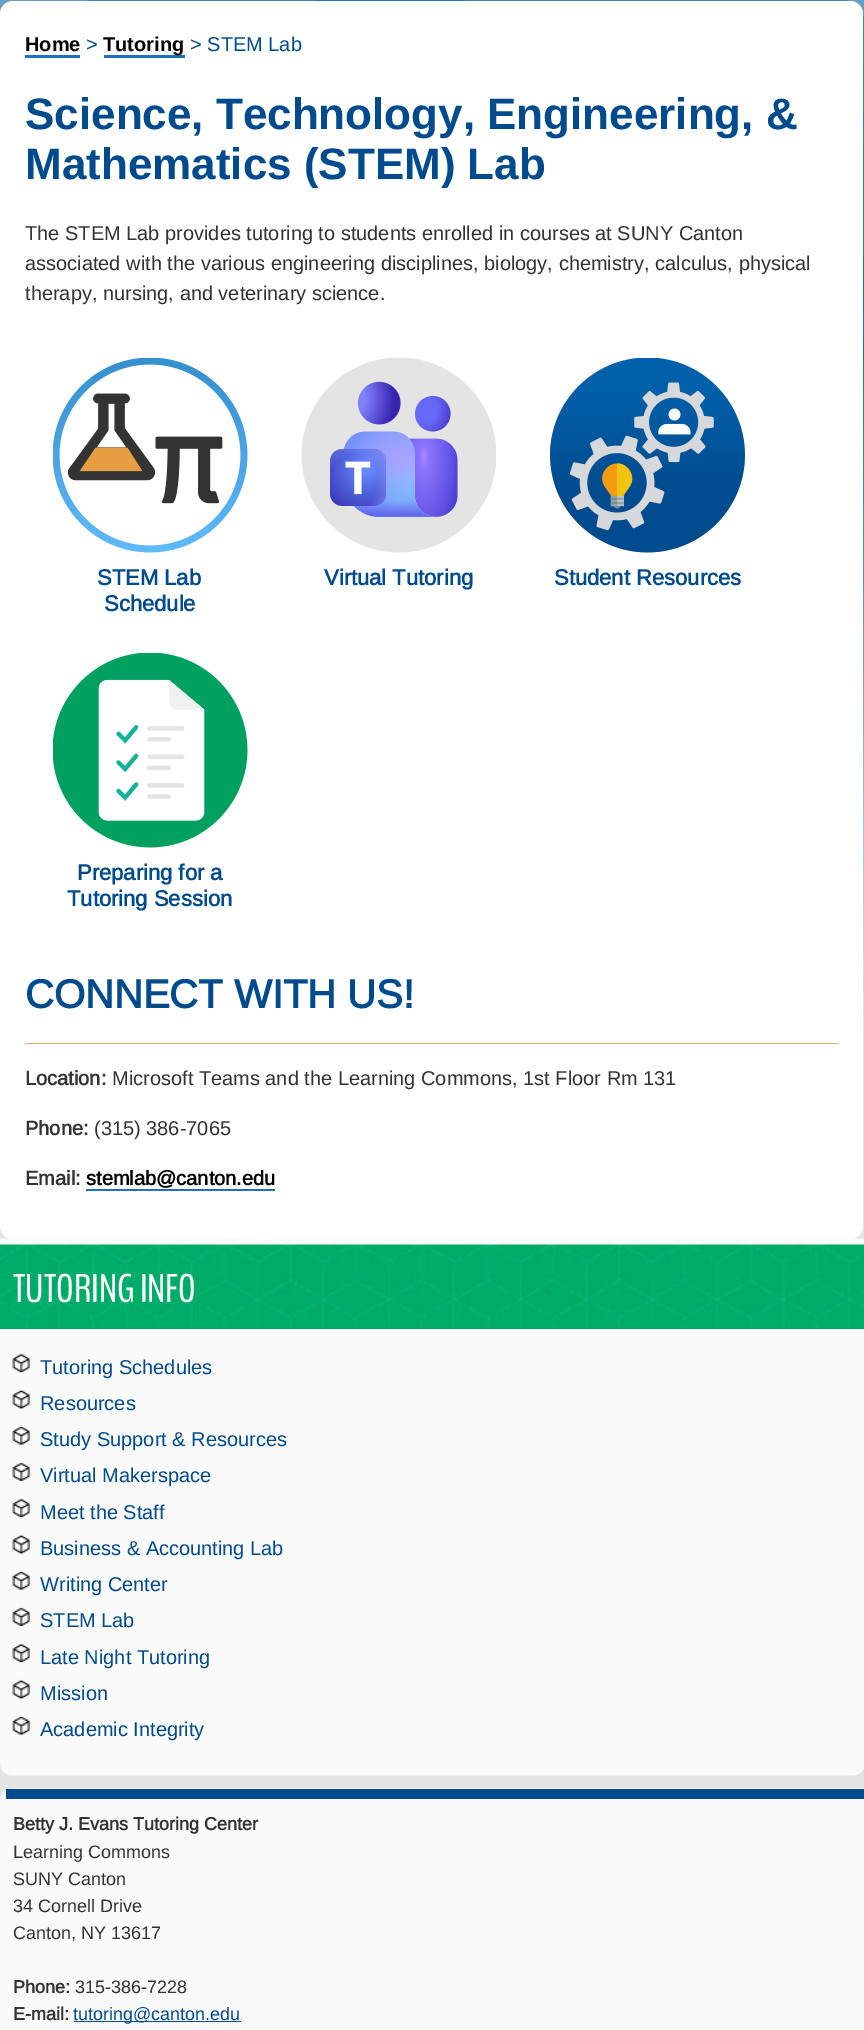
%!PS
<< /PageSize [864 2030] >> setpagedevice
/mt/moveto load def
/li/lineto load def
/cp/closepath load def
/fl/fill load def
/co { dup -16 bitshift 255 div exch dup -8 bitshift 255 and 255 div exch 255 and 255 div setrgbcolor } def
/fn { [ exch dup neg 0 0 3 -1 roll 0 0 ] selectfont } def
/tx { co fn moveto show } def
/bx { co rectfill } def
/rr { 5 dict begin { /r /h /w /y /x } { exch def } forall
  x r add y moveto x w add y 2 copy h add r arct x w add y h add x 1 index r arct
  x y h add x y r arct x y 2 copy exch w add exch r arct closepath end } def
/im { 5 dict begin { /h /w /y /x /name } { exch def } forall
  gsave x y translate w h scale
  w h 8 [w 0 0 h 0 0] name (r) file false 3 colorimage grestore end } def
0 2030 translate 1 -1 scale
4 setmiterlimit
0 0 864 2030 16#E4E4E4 bx
(media/1.raw) 0 0 864 1029 im
(media/6.raw) 0 1238 864 538 im
16#FFFFFF co
0 1 863 1238 13 rr fl
25 55 55 3 16#1C71C1 bx
104 55 81 3 16#1C71C1 bx
(media/2.raw) 53 358 195 195 im
(media/3.raw) 301 358 195 195 im
(media/4.raw) 550 358 195 195 im
(media/5.raw) 53 653 195 195 im
25 1043 813 1 16#CFB077 bx
16#1C71C1 co
86 1170 mt 86 1191 li 275 1191 li 275 1189 li 86 1189 li cp fl
0 1328 864 1 16#00A160 bx
(media/7.raw) 0 1244 864 85 im
(media/8.raw) 12 1353 19 20 im
(media/9.raw) 12 1389 19 21 im
(media/10.raw) 12 1426 19 20 im
(media/11.raw) 12 1462 19 20 im
(media/8.raw) 12 1498 19 20 im
(media/9.raw) 12 1534 19 21 im
(media/10.raw) 12 1571 19 20 im
(media/11.raw) 12 1607 19 20 im
(media/8.raw) 12 1643 19 20 im
(media/9.raw) 12 1679 19 21 im
(media/10.raw) 12 1716 19 20 im
(media/12.raw) 0 1788 864 242 im
6 1789 858 10 16#004B8D bx
74 2021 167 1 16#004B8D bx
(Home) 25 51 /LiberationSans-Bold 20 16#000000 tx
(>) 86 51 /LiberationSans-Regular 20 16#004B8D tx
(Tutoring) 103 51 /LiberationSans-Bold 20 16#000000 tx
(> STEM Lab) 190 51 /LiberationSans-Regular 20 16#004B8D tx
(Science, Technology, Engineering, &) 25 129 /LiberationSans-Bold 44 16#004B8D tx
(Mathematics \(STEM\) Lab) 25 179 /LiberationSans-Bold 44 16#004B8D tx
(The STEM Lab provides tutoring to students enrolled in courses at SUNY Canton) 25 240 /Arimo-Regular 20 16#333333 tx
(associated with the various engineering disciplines, biology, chemistry, calculus, physical) 25 270 /Arimo-Regular 20 16#333333 tx
(therapy, nursing, and veterinary science.) 25 300 /Arimo-Regular 20 16#333333 tx
(STEM Lab) 97 585 /Arimo-Bold 22 16#004B8D tx
(Schedule) 104 611 /Arimo-Bold 22 16#004B8D tx
(Virtual Tutoring) 324 585 /Arimo-Bold 22 16#004B8D tx
(Student Resources) 554 585 /Arimo-Bold 22 16#004B8D tx
(Preparing for a) 77 880 /Arimo-Bold 22 16#004B8D tx
(Tutoring Session) 67 906 /Arimo-Bold 22 16#004B8D tx
(CONNECT WITH US!) 25 1008 /Arimo-Bold 40 16#004B8D tx
(Location:) 25 1085 /Arimo-Bold 20 16#333333 tx
(Microsoft Teams and the Learning Commons, 1st Floor Rm 131) 112 1085 /Arimo-Regular 20 16#333333 tx
(Phone:) 25 1135 /Arimo-Bold 20 16#333333 tx
(\(315\) 386-7065) 94 1135 /Arimo-Regular 20 16#333333 tx
(Email:) 25 1185 /Arimo-Bold 20 16#333333 tx
(stemlab@canton.edu) 86 1185 /Arimo-Bold 20 16#000000 tx
(TUTORING INFO) 13 1302 /BenchNine-Regular 40 16#FFFFFF tx
(Tutoring Schedules) 40 1374 /Arimo-Regular 20 16#004B8D tx
(Resources) 40 1410 /Arimo-Regular 20 16#004B8D tx
(Study Support & Resources) 40 1446 /Arimo-Regular 20 16#004B8D tx
(Virtual Makerspace) 40 1482 /Arimo-Regular 20 16#004B8D tx
(Meet the Staff) 40 1519 /Arimo-Regular 20 16#004B8D tx
(Business & Accounting Lab) 40 1555 /Arimo-Regular 20 16#004B8D tx
(Writing Center) 40 1591 /Arimo-Regular 20 16#004B8D tx
(STEM Lab) 40 1627 /Arimo-Regular 20 16#004B8D tx
(Late Night Tutoring) 40 1664 /Arimo-Regular 20 16#004B8D tx
(Mission) 40 1700 /Arimo-Regular 20 16#004B8D tx
(Academic Integrity) 40 1736 /Arimo-Regular 20 16#004B8D tx
(Betty J. Evans Tutoring Center) 13 1830 /Arimo-Bold 18 16#333333 tx
(Learning Commons) 13 1858 /Arimo-Regular 18 16#333333 tx
(SUNY Canton) 13 1885 /Arimo-Regular 18 16#333333 tx
(34 Cornell Drive) 13 1912 /Arimo-Regular 18 16#333333 tx
(Canton, NY 13617) 13 1939 /Arimo-Regular 18 16#333333 tx
(Phone:) 13 1993 /Arimo-Bold 18 16#333333 tx
(315-386-7228) 75 1993 /Arimo-Regular 18 16#333333 tx
(E-mail:) 13 2020 /Arimo-Bold 18 16#333333 tx
(tutoring@canton.edu) 73 2020 /Arimo-Regular 18 16#004B8D tx
showpage
